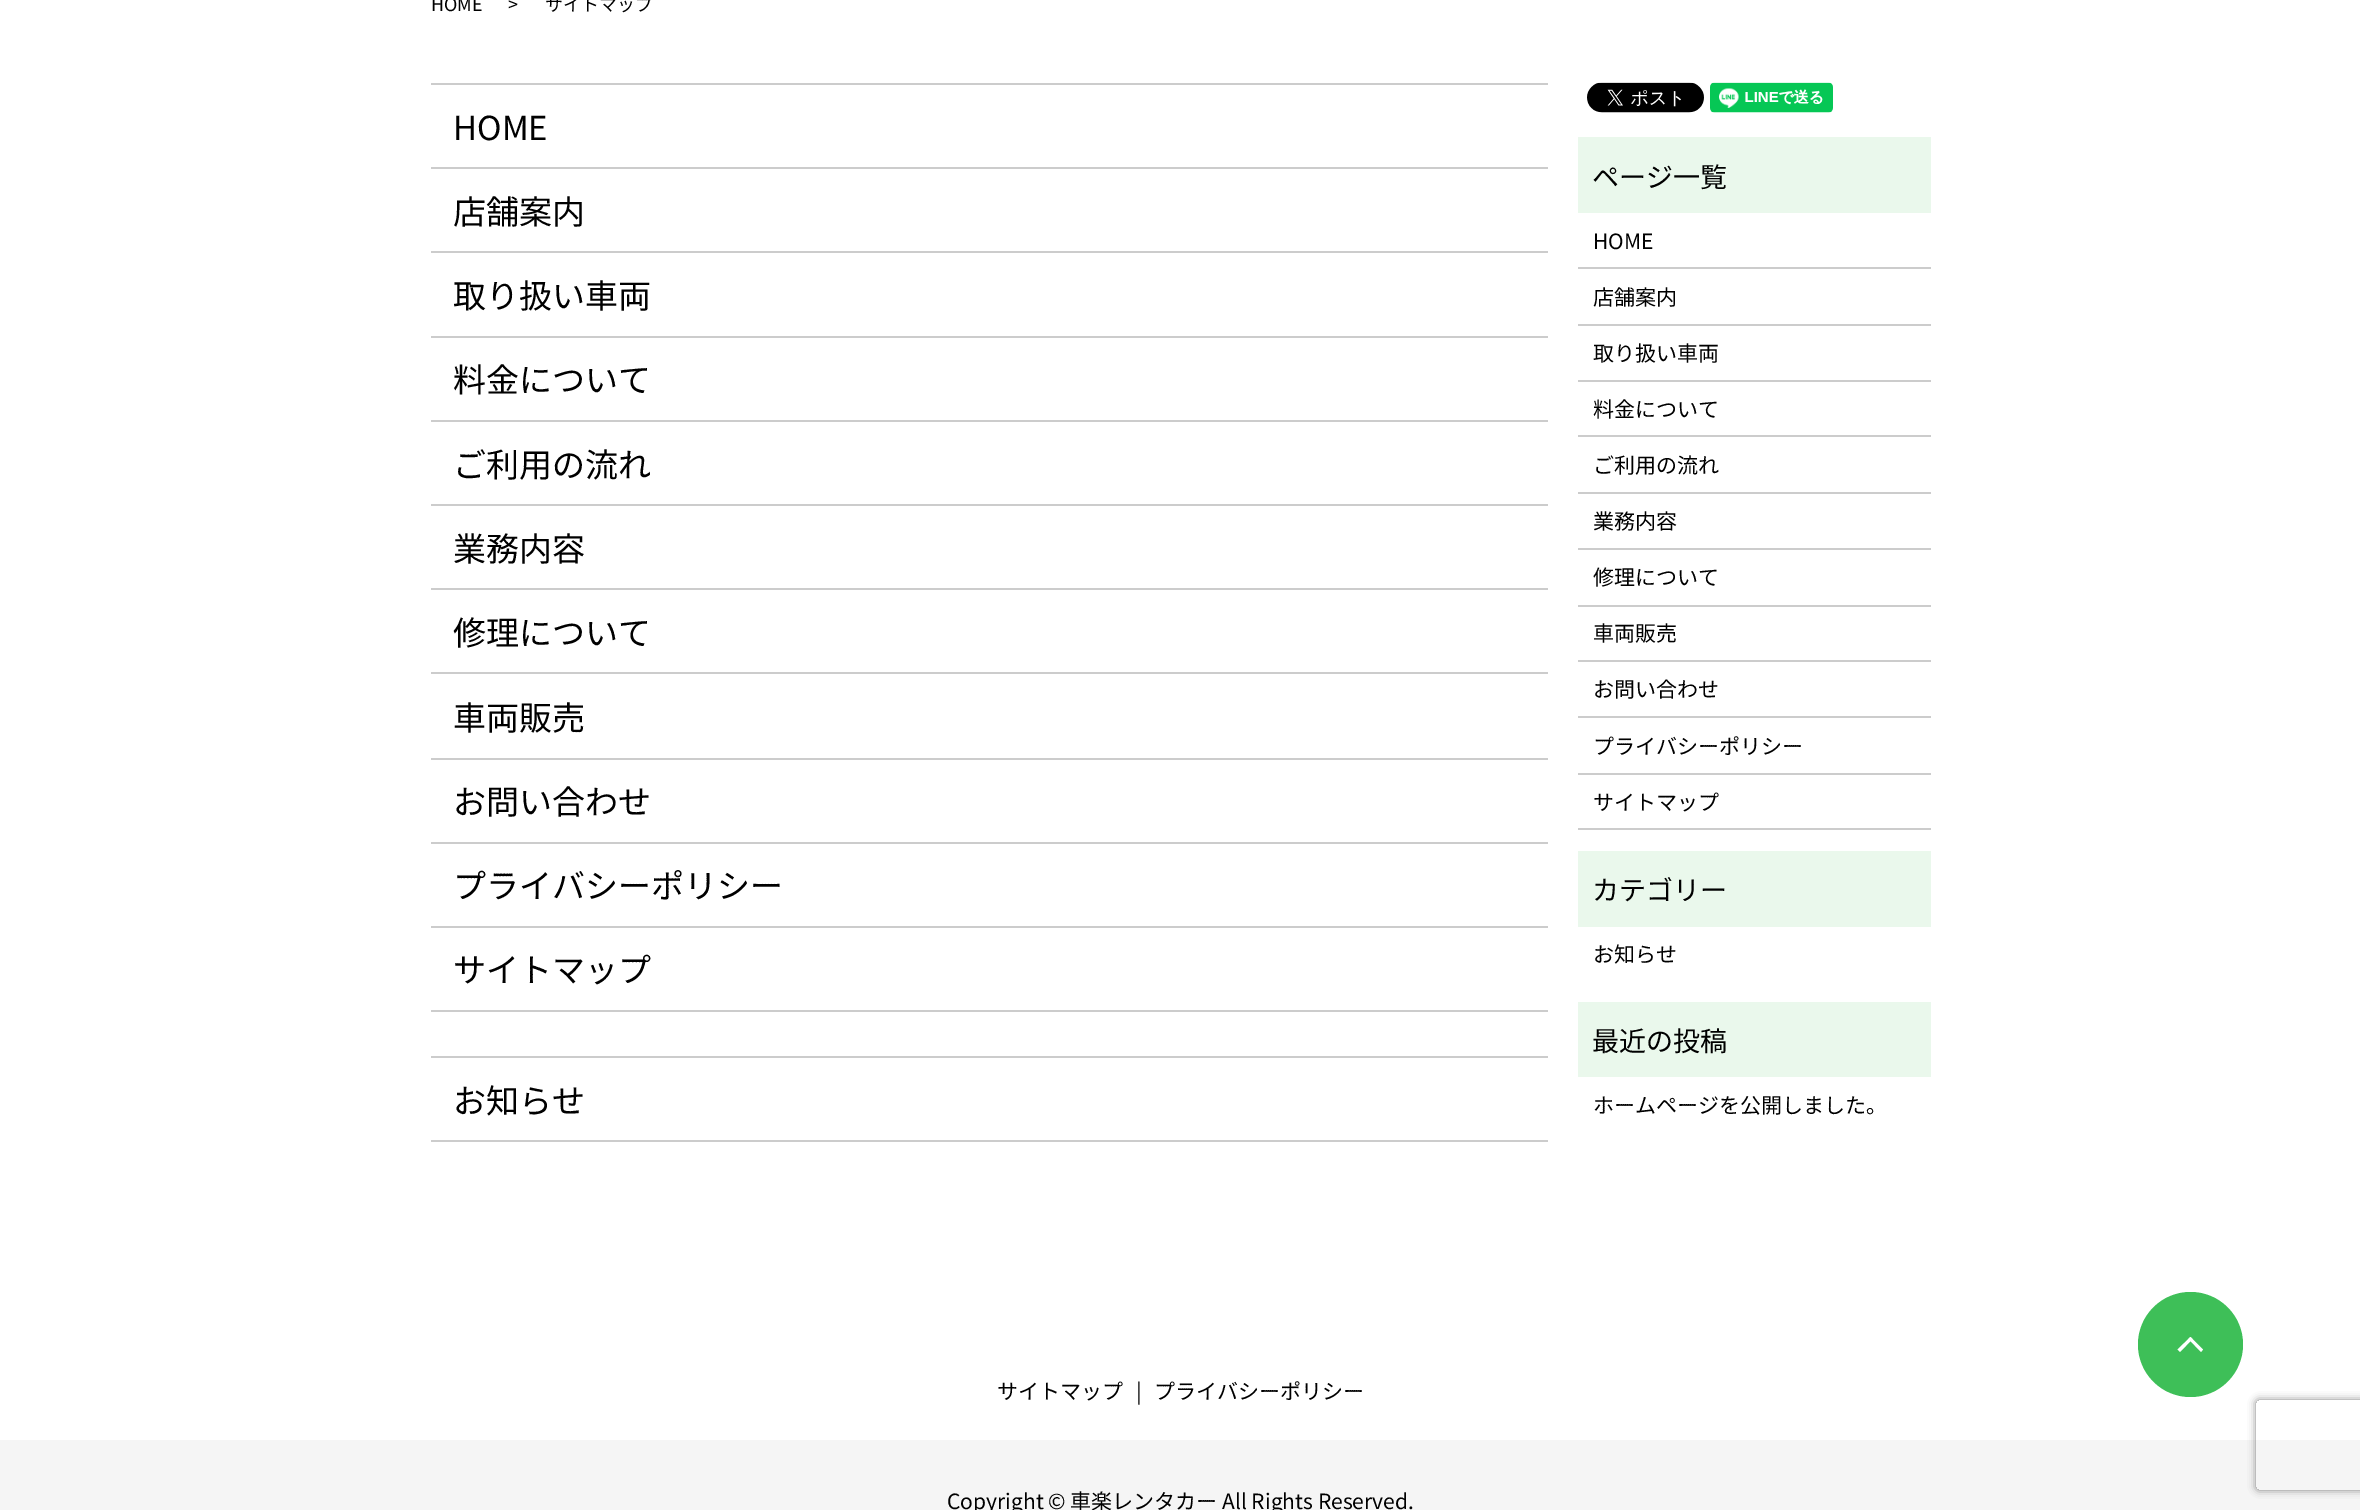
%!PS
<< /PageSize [2360 1510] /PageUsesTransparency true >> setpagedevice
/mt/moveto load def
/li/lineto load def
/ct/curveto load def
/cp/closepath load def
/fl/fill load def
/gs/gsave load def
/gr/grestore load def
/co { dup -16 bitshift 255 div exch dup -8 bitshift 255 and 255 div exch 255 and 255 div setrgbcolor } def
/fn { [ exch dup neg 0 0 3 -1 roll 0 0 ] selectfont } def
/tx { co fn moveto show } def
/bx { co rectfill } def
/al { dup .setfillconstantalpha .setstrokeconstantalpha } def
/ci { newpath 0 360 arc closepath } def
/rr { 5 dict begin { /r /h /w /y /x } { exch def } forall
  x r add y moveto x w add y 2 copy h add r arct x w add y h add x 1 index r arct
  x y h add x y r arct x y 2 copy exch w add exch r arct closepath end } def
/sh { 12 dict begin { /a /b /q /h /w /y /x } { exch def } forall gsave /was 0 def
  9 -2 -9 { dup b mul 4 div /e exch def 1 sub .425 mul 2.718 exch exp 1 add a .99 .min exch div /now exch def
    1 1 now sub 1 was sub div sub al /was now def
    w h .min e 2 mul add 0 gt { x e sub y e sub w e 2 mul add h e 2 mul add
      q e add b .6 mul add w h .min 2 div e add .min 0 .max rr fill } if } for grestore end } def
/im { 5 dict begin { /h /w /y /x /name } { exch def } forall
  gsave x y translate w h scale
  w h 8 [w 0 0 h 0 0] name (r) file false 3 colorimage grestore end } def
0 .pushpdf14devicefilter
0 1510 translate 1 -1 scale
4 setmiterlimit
0 0 2360 1510 16#FFFFFF bx
431 83 1117 2 16#CCCCCC bx
431 167 1117 2 16#CCCCCC bx
431 251 1117 2 16#CCCCCC bx
431 336 1117 2 16#CCCCCC bx
431 420 1117 2 16#CCCCCC bx
431 504 1117 2 16#CCCCCC bx
431 588 1117 2 16#CCCCCC bx
431 672 1117 2 16#CCCCCC bx
431 758 1117 2 16#CCCCCC bx
431 842 1117 2 16#CCCCCC bx
431 926 1117 2 16#CCCCCC bx
431 1010 1117 2 16#CCCCCC bx
431 1056 1117 2 16#CCCCCC bx
431 1140 1117 2 16#CCCCCC bx
(media/1.raw) 1587 82 117 31 im
(media/2.raw) 1710 82 123 31 im
1578 137 353 76 16#EAF8EC bx
1578 267 353 2 16#CCCCCC bx
1578 324 353 2 16#CCCCCC bx
1578 380 353 2 16#CCCCCC bx
1578 435 353 2 16#CCCCCC bx
1578 492 353 2 16#CCCCCC bx
1578 548 353 2 16#CCCCCC bx
1578 605 353 2 16#CCCCCC bx
1578 660 353 2 16#CCCCCC bx
1578 716 353 2 16#CCCCCC bx
1578 773 353 2 16#CCCCCC bx
1578 828 353 2 16#CCCCCC bx
1578 851 353 76 16#EAF8EC bx
1578 1002 353 75 16#EAF8EC bx
16#3EBF58 co
2190.5 1344.5 52.5 ci fl
16#FFFFFF co
2190.5 1337 mt 2203 1349.5 li 2201 1352 li 2188.5 1339 li cp fl
2190.5 1337 mt 2192.5 1339 li 2180 1352 li 2177.5 1349.5 li cp fl
0 1440 2360 70 16#F5F5F5 bx
gs
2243 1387 mt 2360 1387 li 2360 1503 li 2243 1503 li cp 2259 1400 mt 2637 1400 li 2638.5 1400 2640 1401.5 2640 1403 ct 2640 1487 li 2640 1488.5 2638.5 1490 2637 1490 ct 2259 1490 li 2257.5 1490 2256 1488.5 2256 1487 ct 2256 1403 li 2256 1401.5 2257.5 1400 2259 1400 ct cp eoclip newpath
16#808080 co
2256 1400 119 90 3 4 1 sh
gr
(HOME) 431 11 /NotoSansJP-Regular 18 16#000000 tx
(>) 508 11 /NotoSansJP-Regular 18 16#000000 tx
(サイトマップ) 545 11 /NotoSansJP-Regular 18 16#000000 tx
(HOME) 453 140 /NotoSansJP-Regular 33 16#000000 tx
(店舗案内) 453 224 /NotoSansJP-Regular 33 16#000000 tx
(取り扱い車両) 453 308 /NotoSansJP-Regular 33 16#000000 tx
(料金について) 453 392 /NotoSansJP-Regular 33 16#000000 tx
(ご利用の流れ) 453 477 /NotoSansJP-Regular 33 16#000000 tx
(業務内容) 453 561 /NotoSansJP-Regular 33 16#000000 tx
(修理について) 453 645 /NotoSansJP-Regular 33 16#000000 tx
(車両販売) 453 730 /NotoSansJP-Regular 33 16#000000 tx
(お問い合わせ) 453 814 /NotoSansJP-Regular 33 16#000000 tx
(プライバシーポリシー) 453 898 /NotoSansJP-Regular 33 16#000000 tx
(サイトマップ) 453 982 /NotoSansJP-Regular 33 16#000000 tx
(お知らせ) 453 1113 /NotoSansJP-Regular 33 16#000000 tx
(ページ一覧) 1592 187 /NotoSansJP-Regular 27 16#000000 tx
(HOME) 1593 249 /NotoSansJP-Regular 21 16#000000 tx
(店舗案内) 1593 305 /NotoSansJP-Regular 21 16#000000 tx
(取り扱い車両) 1593 361 /NotoSansJP-Regular 21 16#000000 tx
(料金について) 1593 417 /NotoSansJP-Regular 21 16#000000 tx
(ご利用の流れ) 1593 473 /NotoSansJP-Regular 21 16#000000 tx
(業務内容) 1593 529 /NotoSansJP-Regular 21 16#000000 tx
(修理について) 1593 585 /NotoSansJP-Regular 21 16#000000 tx
(車両販売) 1593 641 /NotoSansJP-Regular 21 16#000000 tx
(お問い合わせ) 1593 697 /NotoSansJP-Regular 21 16#000000 tx
(プライバシーポリシー) 1593 754 /NotoSansJP-Regular 21 16#000000 tx
(サイトマップ) 1593 810 /NotoSansJP-Regular 21 16#000000 tx
(カテゴリー) 1592 900 /NotoSansJP-Regular 27 16#000000 tx
(お知らせ) 1593 962 /NotoSansJP-Regular 21 16#000000 tx
(最近の投稿) 1592 1051 /NotoSansJP-Regular 27 16#000000 tx
(ホームページを公開しました。) 1593 1113 /NotoSansJP-Regular 21 16#000000 tx
(サイトマップ) 997 1399 /NotoSansJP-Regular 21 16#000000 tx
(|) 1136 1399 /NotoSansJP-Regular 21 16#000000 tx
(プライバシーポリシー) 1154 1399 /NotoSansJP-Regular 21 16#000000 tx
(Copyright © 車楽レンタカー All Rights Reserved.) 947 1509 /NotoSansJP-Regular 21 16#000000 tx
.poppdf14devicefilter showpage
